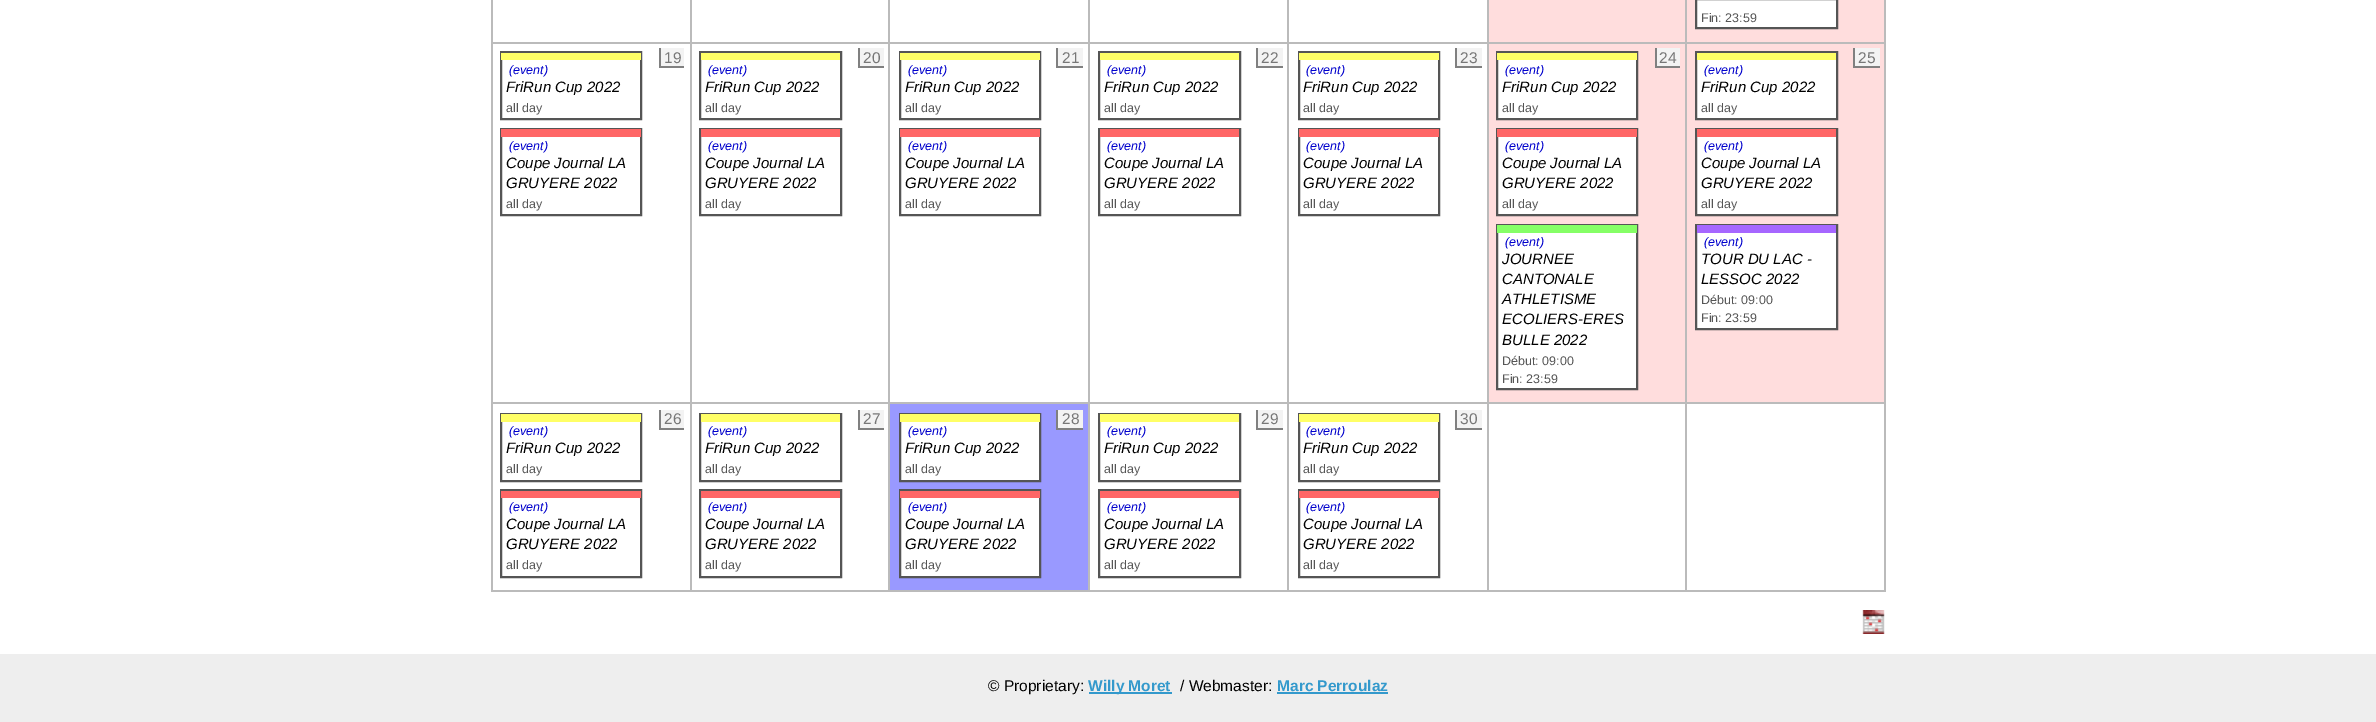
%!PS
<< /PageSize [2376 722] >> setpagedevice
/mt/moveto load def
/li/lineto load def
/cp/closepath load def
/fl/fill load def
/st/stroke load def
/gs/gsave load def
/gr/grestore load def
/lw/setlinewidth load def
/co { dup -16 bitshift 255 div exch dup -8 bitshift 255 and 255 div exch 255 and 255 div setrgbcolor } def
/fn { [ exch dup neg 0 0 3 -1 roll 0 0 ] selectfont } def
/tx { co fn moveto show } def
/bx { co rectfill } def
/im { 5 dict begin { /h /w /y /x /name } { exch def } forall
  gsave x y translate w h scale
  w h 8 [w 0 0 h 0 0] name (r) file false 3 colorimage grestore end } def
0 722 translate 1 -1 scale
4 setmiterlimit
0 0 2376 722 16#FFFFFF bx
1685 42 201 2 16#BBBBBB bx
1685 402 201 2 16#BBBBBB bx
1884 402 2 189 16#BBBBBB bx
1685 590 201 2 16#BBBBBB bx
1685 402 2 189 16#BBBBBB bx
1487 402 199 2 16#BBBBBB bx
1685 42 2 362 16#BBBBBB bx
1487 42 199 2 16#BBBBBB bx
1487 590 199 2 16#BBBBBB bx
1487 402 2 189 16#BBBBBB bx
1287 402 201 2 16#BBBBBB bx
1487 42 2 362 16#BBBBBB bx
1287 42 201 2 16#BBBBBB bx
1287 590 201 2 16#BBBBBB bx
1287 402 2 189 16#BBBBBB bx
1088 402 201 2 16#BBBBBB bx
1287 42 2 362 16#BBBBBB bx
1088 42 201 2 16#BBBBBB bx
1088 590 201 2 16#BBBBBB bx
1088 402 2 189 16#BBBBBB bx
888 402 201 2 16#BBBBBB bx
1088 42 2 362 16#BBBBBB bx
888 42 201 2 16#BBBBBB bx
888 590 201 2 16#BBBBBB bx
888 402 2 189 16#BBBBBB bx
690 402 200 2 16#BBBBBB bx
888 42 2 362 16#BBBBBB bx
690 42 200 2 16#BBBBBB bx
690 590 200 2 16#BBBBBB bx
690 402 2 189 16#BBBBBB bx
491 402 201 2 16#BBBBBB bx
690 42 2 362 16#BBBBBB bx
491 42 201 2 16#BBBBBB bx
690 0 2 44 16#BBBBBB bx
888 0 2 44 16#BBBBBB bx
1088 0 2 44 16#BBBBBB bx
1287 0 2 44 16#BBBBBB bx
1489 0 196 42 16#FFDDDD bx
1487 0 2 44 16#BBBBBB bx
1687 0 197 42 16#FFDDDD bx
1685 0 2 44 16#BBBBBB bx
16#FFFFFF co
1696 -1 mt 1837 -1 li 1837 28 li 1696 28 li cp gs fl gr
16#555555 co
2 lw
st
491 590 201 2 16#BBBBBB bx
491 402 2 189 16#BBBBBB bx
491 0 2 404 16#BBBBBB bx
661 48 23 18 16#F3F3F3 bx
659 66 25 2 16#808080 bx
659 48 2 20 16#808080 bx
16#555555 co
501 52 140 67 rectstroke
501 53 140 7 16#FFFF66 bx
16#555555 co
501 129 140 86 rectstroke
501 129 140 8 16#FF6666 bx
860 48 24 18 16#F3F3F3 bx
858 66 26 2 16#808080 bx
858 48 2 20 16#808080 bx
16#555555 co
700 52 141 67 rectstroke
701 53 139 7 16#FFFF66 bx
16#555555 co
700 129 141 86 rectstroke
701 129 139 8 16#FF6666 bx
1058 48 25 18 16#F3F3F3 bx
1056 66 27 2 16#808080 bx
1056 48 2 20 16#808080 bx
16#555555 co
900 52 140 67 rectstroke
900 53 140 7 16#FFFF66 bx
16#555555 co
900 129 140 86 rectstroke
900 129 140 8 16#FF6666 bx
1258 48 25 18 16#F3F3F3 bx
1256 66 27 2 16#808080 bx
1256 48 2 20 16#808080 bx
16#555555 co
1099 52 141 67 rectstroke
1100 53 139 7 16#FFFF66 bx
16#555555 co
1099 129 141 86 rectstroke
1100 129 139 8 16#FF6666 bx
1457 48 25 18 16#F3F3F3 bx
1455 66 27 2 16#808080 bx
1455 48 2 20 16#808080 bx
16#555555 co
1299 52 140 67 rectstroke
1299 53 140 7 16#FFFF66 bx
16#555555 co
1299 129 140 86 rectstroke
1299 129 140 8 16#FF6666 bx
1489 44 196 358 16#FFDDDD bx
1657 48 23 18 16#F3F3F3 bx
1655 66 25 2 16#808080 bx
1655 48 2 20 16#808080 bx
1498 60 138 58 16#FFFFFF bx
16#555555 co
1497 52 140 67 rectstroke
1497 53 140 7 16#FFFF66 bx
1498 137 138 77 16#FFFFFF bx
16#555555 co
1497 129 140 86 rectstroke
1497 129 140 8 16#FF6666 bx
1498 233 138 155 16#FFFFFF bx
16#555555 co
1497 225 140 164 rectstroke
1497 225 140 8 16#85FF66 bx
1687 44 197 358 16#FFDDDD bx
1884 0 2 404 16#BBBBBB bx
1855 48 25 18 16#F3F3F3 bx
1853 66 27 2 16#808080 bx
1853 48 2 20 16#808080 bx
1697 60 139 58 16#FFFFFF bx
16#555555 co
1696 52 141 67 rectstroke
1697 53 139 7 16#FFFF66 bx
1697 137 139 77 16#FFFFFF bx
16#555555 co
1696 129 141 86 rectstroke
1697 129 139 8 16#FF6666 bx
1697 233 139 95 16#FFFFFF bx
16#555555 co
1696 225 141 104 rectstroke
1697 225 139 8 16#A666FF bx
661 410 23 18 16#F3F3F3 bx
659 428 25 2 16#808080 bx
659 410 2 19 16#808080 bx
16#555555 co
501 414 140 67 rectstroke
501 414 140 8 16#FFFF66 bx
16#555555 co
501 490 140 87 rectstroke
501 491 140 7 16#FF6666 bx
860 410 24 18 16#F3F3F3 bx
858 428 26 2 16#808080 bx
858 410 2 19 16#808080 bx
16#555555 co
700 414 141 67 rectstroke
701 414 139 8 16#FFFF66 bx
16#555555 co
700 490 141 87 rectstroke
701 491 139 7 16#FF6666 bx
890 404 198 186 16#9999FF bx
1058 410 25 18 16#F3F3F3 bx
1056 428 27 2 16#808080 bx
1056 410 2 19 16#808080 bx
901 422 138 58 16#FFFFFF bx
16#555555 co
900 414 140 67 rectstroke
900 414 140 8 16#FFFF66 bx
901 498 138 78 16#FFFFFF bx
16#555555 co
900 490 140 87 rectstroke
900 491 140 7 16#FF6666 bx
1258 410 25 18 16#F3F3F3 bx
1256 428 27 2 16#808080 bx
1256 410 2 19 16#808080 bx
16#555555 co
1099 414 141 67 rectstroke
1100 414 139 8 16#FFFF66 bx
16#555555 co
1099 490 141 87 rectstroke
1100 491 139 7 16#FF6666 bx
1457 410 25 18 16#F3F3F3 bx
1455 428 27 2 16#808080 bx
1455 410 2 19 16#808080 bx
16#555555 co
1299 414 140 67 rectstroke
1299 414 140 8 16#FFFF66 bx
16#555555 co
1299 490 140 87 rectstroke
1299 491 140 7 16#FF6666 bx
(media/1.raw) 1862 610 23 24 im
0 654 2376 68 16#EEEEEE bx
1089 692 83 2 16#3399CC bx
1277 692 111 2 16#3399CC bx
(Fin: 23:59) 1701 22 /LiberationSans-Regular 12.5 16#555555 tx
(19) 664 63 /LiberationSans-Regular 15.5 16#777777 tx
(\(event\)) 509 74 /LiberationSans-Italic 12.5 16#0000CC tx
(FriRun Cup 2022) 506 92 /LiberationSans-Italic 15 16#000000 tx
(all day) 506 112 /LiberationSans-Regular 12.5 16#555555 tx
(\(event\)) 509 150 /LiberationSans-Italic 12.5 16#0000CC tx
(Coupe Journal LA) 506 168 /LiberationSans-Italic 15 16#000000 tx
(GRUYERE 2022) 506 188 /LiberationSans-Italic 15 16#000000 tx
(all day) 506 208 /LiberationSans-Regular 12.5 16#555555 tx
(20) 863 63 /LiberationSans-Regular 15.5 16#777777 tx
(\(event\)) 708 74 /LiberationSans-Italic 12.5 16#0000CC tx
(FriRun Cup 2022) 705 92 /LiberationSans-Italic 15 16#000000 tx
(all day) 705 112 /LiberationSans-Regular 12.5 16#555555 tx
(\(event\)) 708 150 /LiberationSans-Italic 12.5 16#0000CC tx
(Coupe Journal LA) 705 168 /LiberationSans-Italic 15 16#000000 tx
(GRUYERE 2022) 705 188 /LiberationSans-Italic 15 16#000000 tx
(all day) 705 208 /LiberationSans-Regular 12.5 16#555555 tx
(21) 1062 63 /LiberationSans-Regular 15.5 16#777777 tx
(\(event\)) 908 74 /LiberationSans-Italic 12.5 16#0000CC tx
(FriRun Cup 2022) 905 92 /LiberationSans-Italic 15 16#000000 tx
(all day) 905 112 /LiberationSans-Regular 12.5 16#555555 tx
(\(event\)) 908 150 /LiberationSans-Italic 12.5 16#0000CC tx
(Coupe Journal LA) 905 168 /LiberationSans-Italic 15 16#000000 tx
(GRUYERE 2022) 905 188 /LiberationSans-Italic 15 16#000000 tx
(all day) 905 208 /LiberationSans-Regular 12.5 16#555555 tx
(22) 1261 63 /LiberationSans-Regular 15.5 16#777777 tx
(\(event\)) 1107 74 /LiberationSans-Italic 12.5 16#0000CC tx
(FriRun Cup 2022) 1104 92 /LiberationSans-Italic 15 16#000000 tx
(all day) 1104 112 /LiberationSans-Regular 12.5 16#555555 tx
(\(event\)) 1107 150 /LiberationSans-Italic 12.5 16#0000CC tx
(Coupe Journal LA) 1104 168 /LiberationSans-Italic 15 16#000000 tx
(GRUYERE 2022) 1104 188 /LiberationSans-Italic 15 16#000000 tx
(all day) 1104 208 /LiberationSans-Regular 12.5 16#555555 tx
(23) 1460 63 /LiberationSans-Regular 15.5 16#777777 tx
(\(event\)) 1306 74 /LiberationSans-Italic 12.5 16#0000CC tx
(FriRun Cup 2022) 1303 92 /LiberationSans-Italic 15 16#000000 tx
(all day) 1303 112 /LiberationSans-Regular 12.5 16#555555 tx
(\(event\)) 1306 150 /LiberationSans-Italic 12.5 16#0000CC tx
(Coupe Journal LA) 1303 168 /LiberationSans-Italic 15 16#000000 tx
(GRUYERE 2022) 1303 188 /LiberationSans-Italic 15 16#000000 tx
(all day) 1303 208 /LiberationSans-Regular 12.5 16#555555 tx
(24) 1659 63 /LiberationSans-Regular 15.5 16#777777 tx
(\(event\)) 1505 74 /LiberationSans-Italic 12.5 16#0000CC tx
(FriRun Cup 2022) 1502 92 /LiberationSans-Italic 15 16#000000 tx
(all day) 1502 112 /LiberationSans-Regular 12.5 16#555555 tx
(\(event\)) 1505 150 /LiberationSans-Italic 12.5 16#0000CC tx
(Coupe Journal LA) 1502 168 /LiberationSans-Italic 15 16#000000 tx
(GRUYERE 2022) 1502 188 /LiberationSans-Italic 15 16#000000 tx
(all day) 1502 208 /LiberationSans-Regular 12.5 16#555555 tx
(\(event\)) 1505 246 /LiberationSans-Italic 12.5 16#0000CC tx
(JOURNEE) 1502 264 /LiberationSans-Italic 15 16#000000 tx
(CANTONALE) 1502 284 /LiberationSans-Italic 15 16#000000 tx
(ATHLETISME) 1502 304 /LiberationSans-Italic 15 16#000000 tx
(ECOLIERS-ERES) 1502 324 /LiberationSans-Italic 15 16#000000 tx
(BULLE 2022) 1502 345 /LiberationSans-Italic 15 16#000000 tx
(Début: 09:00) 1502 365 /LiberationSans-Regular 12.5 16#555555 tx
(Fin: 23:59) 1502 383 /LiberationSans-Regular 12.5 16#555555 tx
(25) 1858 63 /LiberationSans-Regular 15.5 16#777777 tx
(\(event\)) 1704 74 /LiberationSans-Italic 12.5 16#0000CC tx
(FriRun Cup 2022) 1701 92 /LiberationSans-Italic 15 16#000000 tx
(all day) 1701 112 /LiberationSans-Regular 12.5 16#555555 tx
(\(event\)) 1704 150 /LiberationSans-Italic 12.5 16#0000CC tx
(Coupe Journal LA) 1701 168 /LiberationSans-Italic 15 16#000000 tx
(GRUYERE 2022) 1701 188 /LiberationSans-Italic 15 16#000000 tx
(all day) 1701 208 /LiberationSans-Regular 12.5 16#555555 tx
(\(event\)) 1704 246 /LiberationSans-Italic 12.5 16#0000CC tx
(TOUR DU LAC -) 1701 264 /LiberationSans-Italic 15 16#000000 tx
(LESSOC 2022) 1701 284 /LiberationSans-Italic 15 16#000000 tx
(Début: 09:00) 1701 304 /LiberationSans-Regular 12.5 16#555555 tx
(Fin: 23:59) 1701 322 /LiberationSans-Regular 12.5 16#555555 tx
(26) 664 424 /LiberationSans-Regular 15.5 16#777777 tx
(\(event\)) 509 435 /LiberationSans-Italic 12.5 16#0000CC tx
(FriRun Cup 2022) 506 453 /LiberationSans-Italic 15 16#000000 tx
(all day) 506 473 /LiberationSans-Regular 12.5 16#555555 tx
(\(event\)) 509 511 /LiberationSans-Italic 12.5 16#0000CC tx
(Coupe Journal LA) 506 529 /LiberationSans-Italic 15 16#000000 tx
(GRUYERE 2022) 506 549 /LiberationSans-Italic 15 16#000000 tx
(all day) 506 569 /LiberationSans-Regular 12.5 16#555555 tx
(27) 863 424 /LiberationSans-Regular 15.5 16#777777 tx
(\(event\)) 708 435 /LiberationSans-Italic 12.5 16#0000CC tx
(FriRun Cup 2022) 705 453 /LiberationSans-Italic 15 16#000000 tx
(all day) 705 473 /LiberationSans-Regular 12.5 16#555555 tx
(\(event\)) 708 511 /LiberationSans-Italic 12.5 16#0000CC tx
(Coupe Journal LA) 705 529 /LiberationSans-Italic 15 16#000000 tx
(GRUYERE 2022) 705 549 /LiberationSans-Italic 15 16#000000 tx
(all day) 705 569 /LiberationSans-Regular 12.5 16#555555 tx
(28) 1062 424 /LiberationSans-Regular 15.5 16#777777 tx
(\(event\)) 908 435 /LiberationSans-Italic 12.5 16#0000CC tx
(FriRun Cup 2022) 905 453 /LiberationSans-Italic 15 16#000000 tx
(all day) 905 473 /LiberationSans-Regular 12.5 16#555555 tx
(\(event\)) 908 511 /LiberationSans-Italic 12.5 16#0000CC tx
(Coupe Journal LA) 905 529 /LiberationSans-Italic 15 16#000000 tx
(GRUYERE 2022) 905 549 /LiberationSans-Italic 15 16#000000 tx
(all day) 905 569 /LiberationSans-Regular 12.5 16#555555 tx
(29) 1261 424 /LiberationSans-Regular 15.5 16#777777 tx
(\(event\)) 1107 435 /LiberationSans-Italic 12.5 16#0000CC tx
(FriRun Cup 2022) 1104 453 /LiberationSans-Italic 15 16#000000 tx
(all day) 1104 473 /LiberationSans-Regular 12.5 16#555555 tx
(\(event\)) 1107 511 /LiberationSans-Italic 12.5 16#0000CC tx
(Coupe Journal LA) 1104 529 /LiberationSans-Italic 15 16#000000 tx
(GRUYERE 2022) 1104 549 /LiberationSans-Italic 15 16#000000 tx
(all day) 1104 569 /LiberationSans-Regular 12.5 16#555555 tx
(30) 1460 424 /LiberationSans-Regular 15.5 16#777777 tx
(\(event\)) 1306 435 /LiberationSans-Italic 12.5 16#0000CC tx
(FriRun Cup 2022) 1303 453 /LiberationSans-Italic 15 16#000000 tx
(all day) 1303 473 /LiberationSans-Regular 12.5 16#555555 tx
(\(event\)) 1306 511 /LiberationSans-Italic 12.5 16#0000CC tx
(Coupe Journal LA) 1303 529 /LiberationSans-Italic 15 16#000000 tx
(GRUYERE 2022) 1303 549 /LiberationSans-Italic 15 16#000000 tx
(all day) 1303 569 /LiberationSans-Regular 12.5 16#555555 tx
(© Proprietary:) 988 691 /LiberationSans-Regular 15.5 16#000000 tx
(Willy Moret) 1088 691 /LiberationSans-Bold 15.5 16#3399CC tx
(/ Webmaster:) 1180 691 /LiberationSans-Regular 15.5 16#000000 tx
(Marc Perroulaz) 1277 691 /LiberationSans-Bold 15.5 16#3399CC tx
showpage
